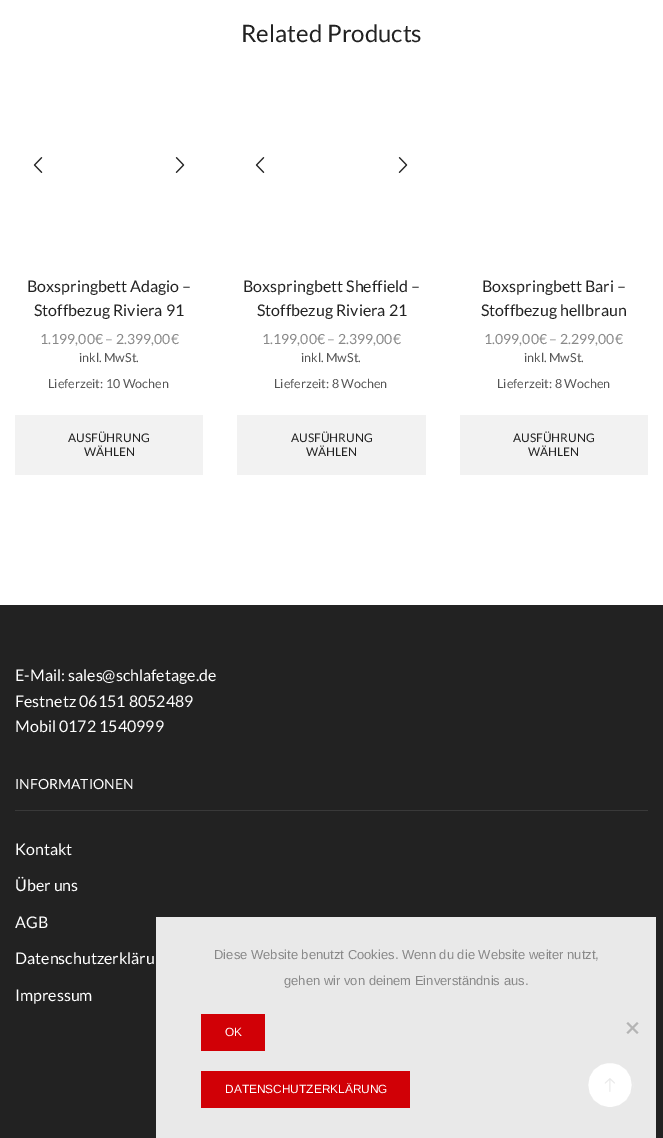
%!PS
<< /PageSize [663 1138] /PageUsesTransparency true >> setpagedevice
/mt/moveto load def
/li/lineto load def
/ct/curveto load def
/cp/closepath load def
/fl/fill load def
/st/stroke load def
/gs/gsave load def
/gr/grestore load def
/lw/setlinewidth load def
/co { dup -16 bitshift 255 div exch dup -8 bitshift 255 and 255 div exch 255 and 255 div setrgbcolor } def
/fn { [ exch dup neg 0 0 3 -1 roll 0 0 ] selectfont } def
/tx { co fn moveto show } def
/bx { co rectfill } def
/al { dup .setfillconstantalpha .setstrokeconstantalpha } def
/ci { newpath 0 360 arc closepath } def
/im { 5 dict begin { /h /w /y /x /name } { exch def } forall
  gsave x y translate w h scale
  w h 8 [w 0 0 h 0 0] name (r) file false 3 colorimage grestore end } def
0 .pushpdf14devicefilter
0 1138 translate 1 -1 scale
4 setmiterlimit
0 0 663 1138 16#FFFFFF bx
(media/1.raw) 33 157 10 16 im
(media/2.raw) 175 157 10 16 im
15 415 188 60 16#F2F2F2 bx
(media/1.raw) 255 157 10 16 im
(media/2.raw) 398 157 10 16 im
237 415 189 60 16#F2F2F2 bx
460 415 188 60 16#F2F2F2 bx
0 605 663 533 16#222222 bx
15 810 633 1 16#393939 bx
16#FFFFFF co
610 1085 22.5 ci gs fl gr
16#E1E1E1 co
st
16#222222 co
1.9 lw
610 1062 mt 640.5 1062 640.5 1108 610 1108 ct 579.5 1108 579.5 1062 610 1062 ct st
(media/3.raw) 604 1078 12 14 im
0.9 al
156 917 500 221 16#FFFFFF bx
1 al
201 1014 64 37 16#D10006 bx
201 1071 209 37 16#D10006 bx
16#B4B4B4 co
637 1022 mt 638.5 1023.5 li 628 1034 li 626.5 1032.5 li cp fl
626.5 1023.5 mt 628 1022 li 638.5 1032.5 li 637 1034 li cp fl
(Related Products) 241 42 /Lato-Regular 24 16#222222 tx
(Boxspringbett Adagio –) 27 292 /Lato-Regular 16 16#222222 tx
(Stoffbezug Riviera 91) 34 316 /Lato-Regular 16 16#222222 tx
(1.199,00€ – 2.399,00€) 40 344 /Lato-Regular 14 16#888888 tx
(inkl. MwSt.) 79 362 /Lato-Regular 12.5 16#555555 tx
(Lieferzeit: 10 Wochen) 48 388 /Lato-Regular 12.5 16#555555 tx
(AUSFÜHRUNG) 68 442 /Lato-Regular 11.9 16#222222 tx
(WÄHLEN) 84 456 /Lato-Regular 11.9 16#222222 tx
(Boxspringbett Sheffield –) 243 292 /Lato-Regular 16 16#222222 tx
(Stoffbezug Riviera 21) 257 316 /Lato-Regular 16 16#222222 tx
(1.199,00€ – 2.399,00€) 262 344 /Lato-Regular 14 16#888888 tx
(inkl. MwSt.) 301 362 /Lato-Regular 12.5 16#555555 tx
(Lieferzeit: 8 Wochen) 274 388 /Lato-Regular 12.5 16#555555 tx
(AUSFÜHRUNG) 291 442 /Lato-Regular 11.9 16#222222 tx
(WÄHLEN) 306 456 /Lato-Regular 11.9 16#222222 tx
(Boxspringbett Bari –) 482 292 /Lato-Regular 16 16#222222 tx
(Stoffbezug hellbraun) 481 316 /Lato-Regular 16 16#222222 tx
(1.099,00€ – 2.299,00€) 484 344 /Lato-Regular 14 16#888888 tx
(inkl. MwSt.) 524 362 /Lato-Regular 12.5 16#555555 tx
(Lieferzeit: 8 Wochen) 497 388 /Lato-Regular 12.5 16#555555 tx
(AUSFÜHRUNG) 513 442 /Lato-Regular 11.9 16#222222 tx
(WÄHLEN) 528 456 /Lato-Regular 11.9 16#222222 tx
(E-Mail: sales@schlafetage.de) 15 681 /Lato-Regular 16 16#FFFFFF tx
(Festnetz 06151 8052489) 15 707 /Lato-Regular 16 16#FFFFFF tx
(Mobil 0172 1540999) 15 732 /Lato-Regular 16 16#FFFFFF tx
(INFORMATIONEN) 15 789 /Lato-Regular 14 16#FFFFFF tx
(Kontakt) 15 855 /Lato-Regular 16 16#FFFFFF tx
(Über uns) 15 891 /Lato-Regular 16 16#FFFFFF tx
(AGB) 15 928 /Lato-Regular 16 16#FFFFFF tx
(Datenschutzerkläru) 15 964 /Lato-Regular 16 16#FFFFFF tx
(Impressum) 15 1001 /Lato-Regular 16 16#FFFFFF tx
(Diese Website benutzt Cookies. Wenn du die Website weiter nutzt,) 214 959 /LiberationSans-Regular 13 16#888888 tx
(gehen wir von deinem Einverständnis aus.) 284 985 /LiberationSans-Regular 13 16#888888 tx
(OK) 225 1036 /LiberationSans-Regular 11.9 16#FFFFFF tx
(DATENSCHUTZERKLÄRUNG) 225 1093 /LiberationSans-Regular 11.9 16#FFFFFF tx
.poppdf14devicefilter showpage
